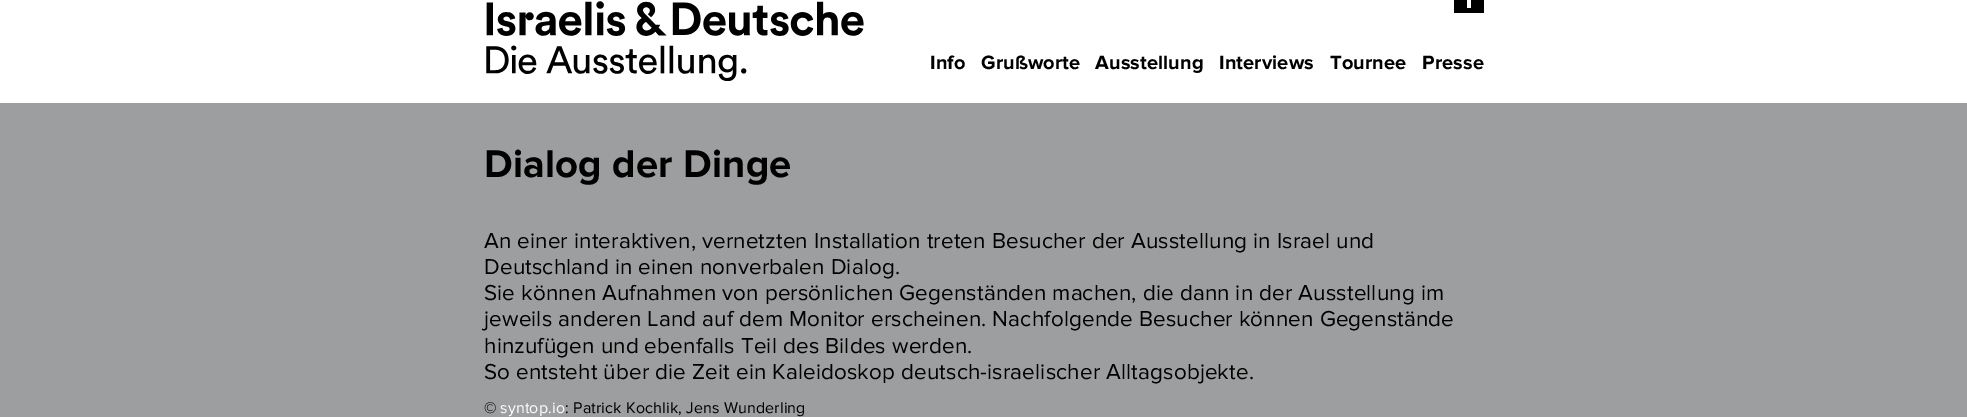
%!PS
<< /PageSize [1967 417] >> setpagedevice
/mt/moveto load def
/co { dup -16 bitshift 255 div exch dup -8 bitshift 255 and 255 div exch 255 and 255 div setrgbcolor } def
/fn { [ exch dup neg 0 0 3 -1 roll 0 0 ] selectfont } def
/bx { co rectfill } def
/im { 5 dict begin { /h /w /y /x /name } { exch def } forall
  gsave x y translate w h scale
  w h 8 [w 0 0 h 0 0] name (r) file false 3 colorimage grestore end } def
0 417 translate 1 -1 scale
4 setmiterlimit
0 0 1967 417 16#FFFFFF bx
(media/1.raw) 486 1 378 80 im
1454 0 30 13 16#000000 bx
1467 0 4 8 16#FFFFFF bx
0 103 1967 314 16#9C9E9F bx
/ProximaNova-Bold 20 fn
16#000000 co
930 69 mt .15 0 (Info) ashow
981 69 mt .15 0 (Grußworte) ashow
1095 69 mt .15 0 (Ausstellung) ashow
1219 69 mt .15 0 (Interviews) ashow
1330 69 mt .15 0 (Tournee) ashow
1422 69 mt .15 0 (Presse) ashow
/ProximaNova-Bold 40 fn
484 177 mt .15 0 (Dialog der Dinge) ashow
/ProximaNova-Regular 22.4 fn
484 248 mt .15 0 (An einer interaktiven, vernetzten Installation treten Besucher der Ausstellung in Israel und) ashow
484 274 mt .15 0 (Deutschland in einen nonverbalen Dialog.) ashow
484 300 mt .15 0 (Sie können Aufnahmen von persönlichen Gegenständen machen, die dann in der Ausstellung im) ashow
484 326 mt .15 0 (jeweils anderen Land auf dem Monitor erscheinen. Nachfolgende Besucher können Gegenstände) ashow
484 353 mt .15 0 (hinzufügen und ebenfalls Teil des Bildes werden.) ashow
484 379 mt .15 0 (So entsteht über die Zeit ein Kaleidoskop deutsch-israelischer Alltagsobjekte.) ashow
/ProximaNova-Regular 16 fn
484 413 mt .15 0 (©) ashow
16#FFFFFF co
500 413 mt .15 0 (syntop.io) ashow
16#000000 co
565 413 mt .15 0 (: Patrick Kochlik, Jens Wunderling) ashow
showpage
